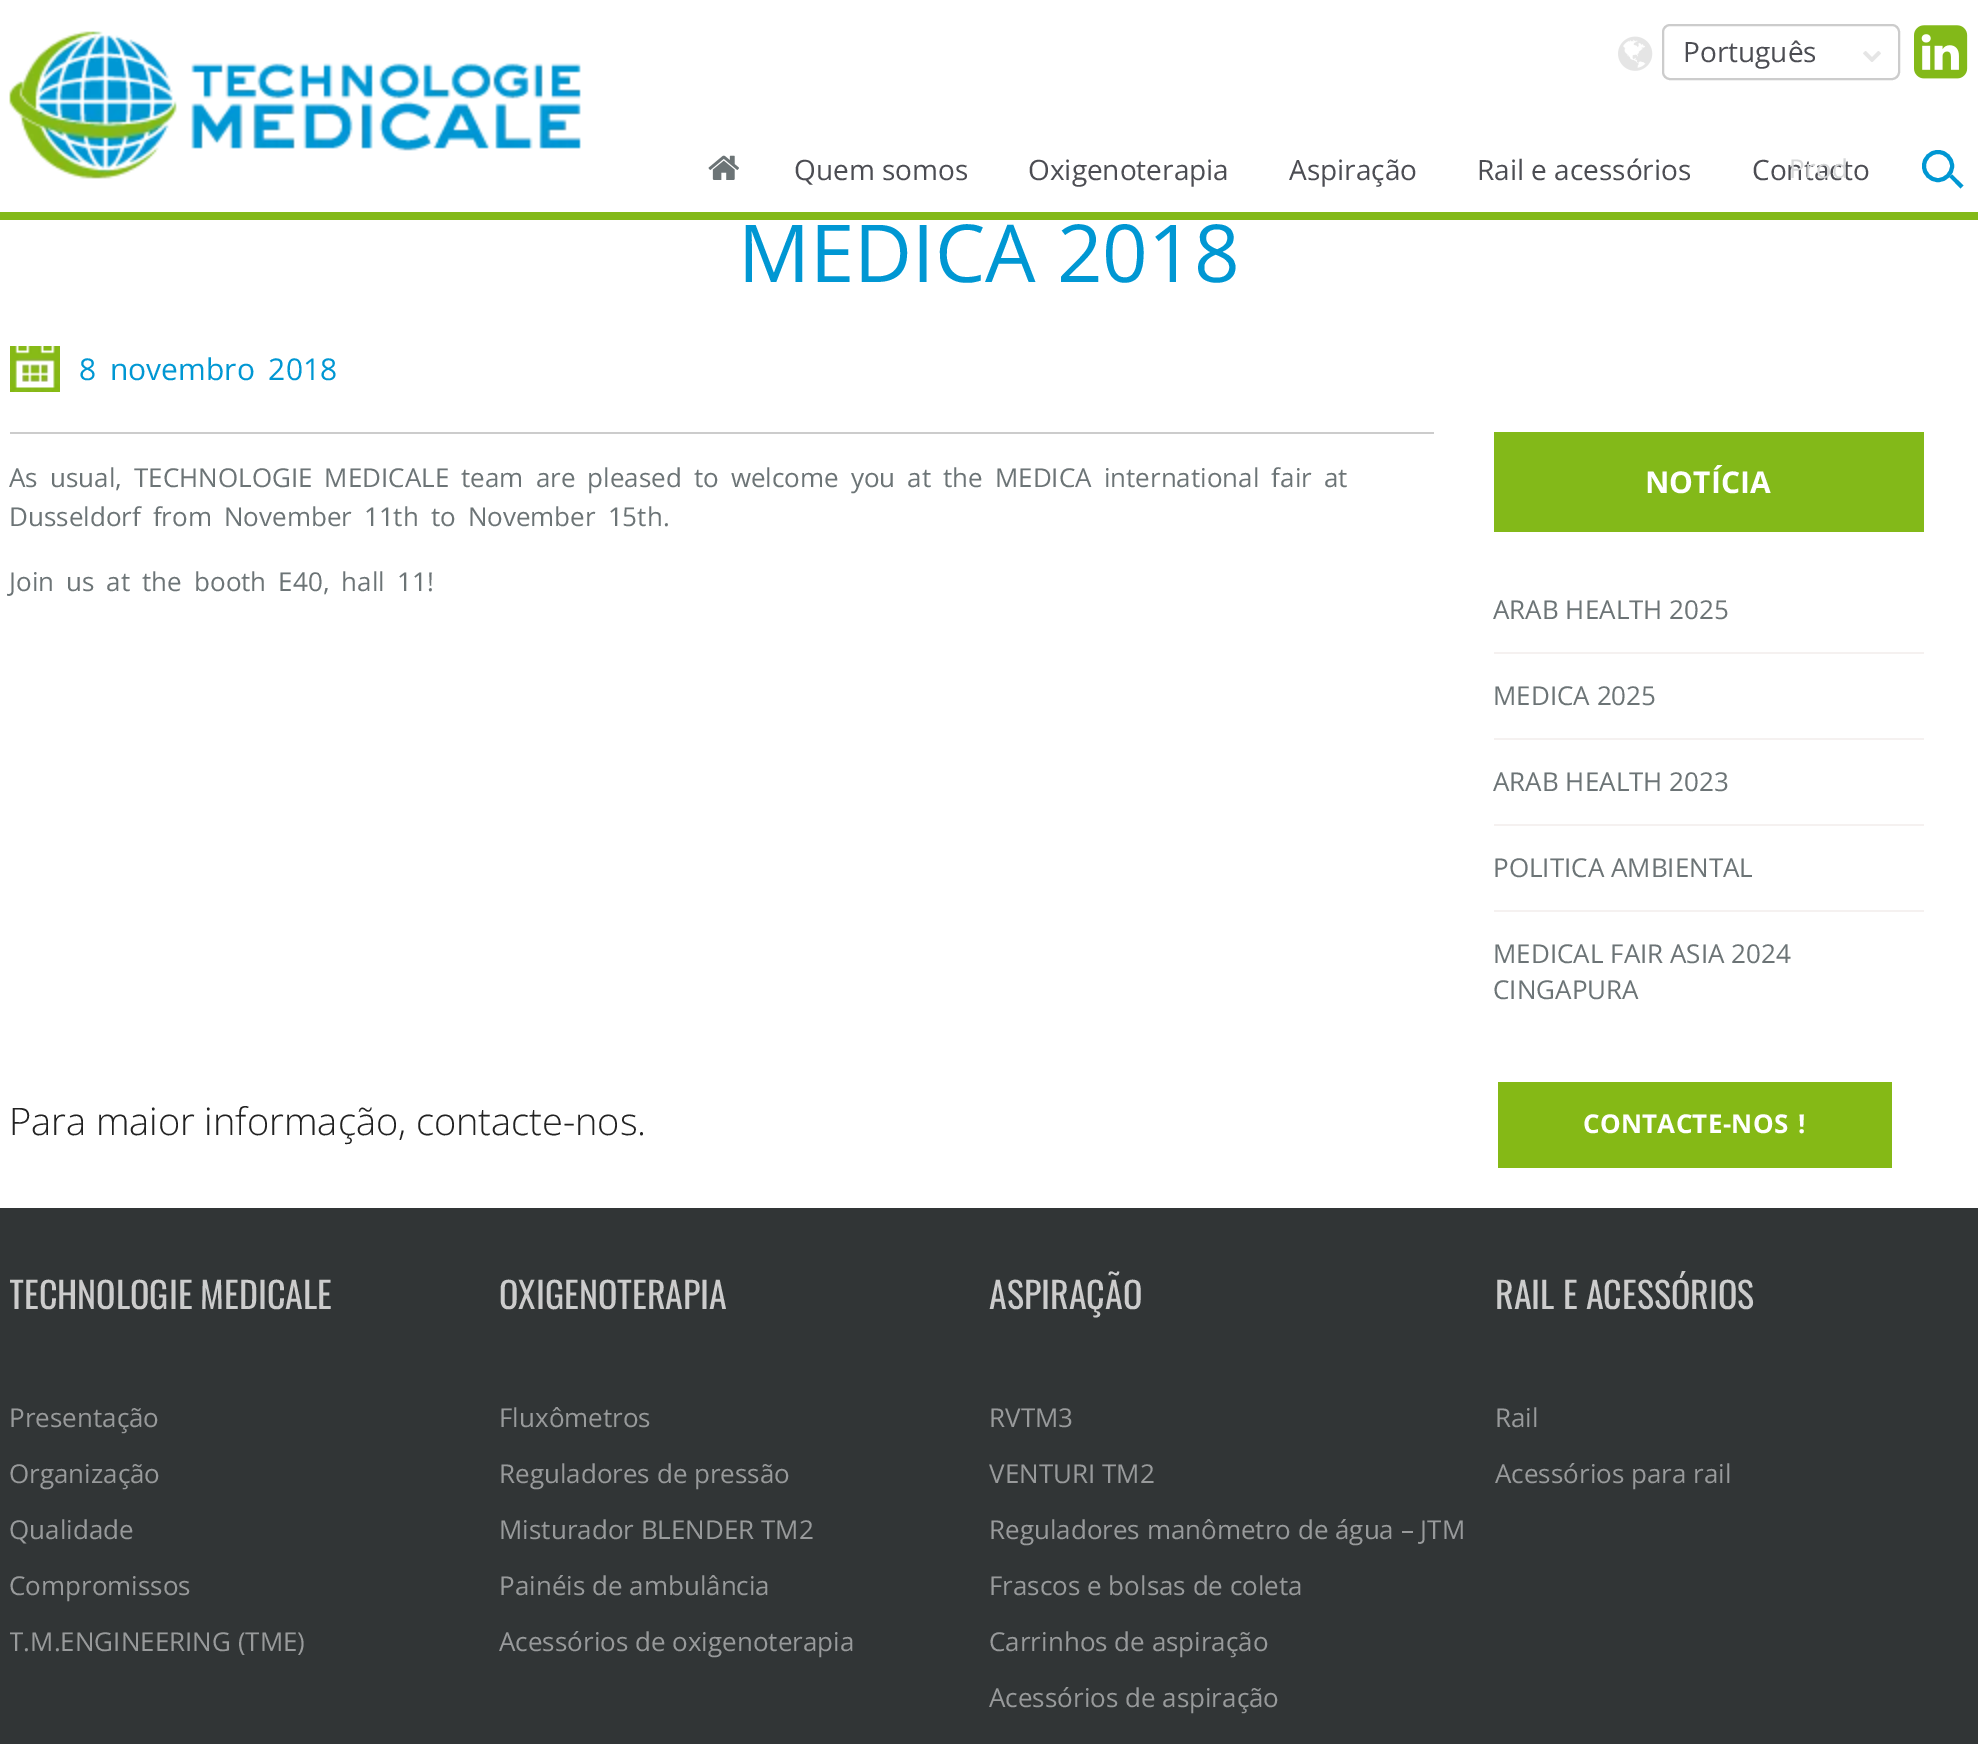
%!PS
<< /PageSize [1978 1744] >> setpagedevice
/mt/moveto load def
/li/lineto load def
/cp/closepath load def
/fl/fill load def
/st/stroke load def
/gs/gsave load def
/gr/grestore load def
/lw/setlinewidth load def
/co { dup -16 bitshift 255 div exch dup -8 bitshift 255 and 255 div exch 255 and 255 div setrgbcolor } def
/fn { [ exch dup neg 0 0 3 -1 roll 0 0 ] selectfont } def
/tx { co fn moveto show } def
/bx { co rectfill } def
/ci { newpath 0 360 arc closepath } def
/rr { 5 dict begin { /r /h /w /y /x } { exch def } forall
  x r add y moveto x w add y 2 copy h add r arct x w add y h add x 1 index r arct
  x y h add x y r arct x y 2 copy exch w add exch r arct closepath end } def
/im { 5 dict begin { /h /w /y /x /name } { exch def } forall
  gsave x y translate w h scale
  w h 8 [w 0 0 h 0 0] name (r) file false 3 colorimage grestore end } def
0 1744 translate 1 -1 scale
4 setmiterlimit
0 0 1978 1744 16#FFFFFF bx
0 212 1978 8 16#83B919 bx
(media/1.raw) 9 31 572 148 im
(media/2.raw) 1618 36 35 35 im
16#CCCCCC co
2 lw
1663 25 236 54 7 rr st
(media/3.raw) 1863 51 18 11 im
(media/4.raw) 708 155 31 25 im
(media/5.raw) 1914 25 54 54 im
16#0097D3 co
4 lw
1938 166 14 ci st
1952 174.5 mt 1963.5 185.5 li 1960.5 188.5 li 1949.5 177 li cp fl
(media/6.raw) 10 346 50 46 im
10 432 1424 2 16#CCCCCC bx
1494 432 430 100 16#83B919 bx
1494 652 430 2 16#F5F1F0 bx
1494 738 430 2 16#F5F1F0 bx
1494 824 430 2 16#F5F1F0 bx
1494 910 430 2 16#F5F1F0 bx
1498 1082 394 86 16#85B916 bx
0 1208 1978 536 16#313536 bx
(Português) 1683 62 /OpenSans-Regular 28 16#4C4D53 tx
(Quem somos) 794 180 /OpenSans-Regular 28 16#4C4D53 tx
(Oxigenoterapia) 1028 180 /OpenSans-Regular 28 16#4C4D53 tx
(Aspiração) 1289 180 /OpenSans-Regular 28 16#4C4D53 tx
(Rail e acessórios) 1477 180 /OpenSans-Regular 28 16#4C4D53 tx
(Contacto) 1752 180 /OpenSans-Regular 28 16#4C4D53 tx
/OpenSans-Regular 26 fn
16#D7D8D9 co
1789 178 mt 3 0 32 .25 0 (Prod) awidthshow
(MEDICA 2018) 738 282 /OpenSans-Regular 80 16#0097D3 tx
/OpenSans-Regular 30 fn
79 380 mt 6 0 32 (8 novembro 2018) widthshow
/OpenSans-Regular 26 fn
16#6C7476 co
9 487 mt 5.25 0 32 (As usual, TECHNOLOGIE MEDICALE team are pleased to welcome you at the MEDICA international fair at) widthshow
9 526 mt 5.25 0 32 (Dusseldorf from November 11th to November 15th.) widthshow
9 591 mt 5.25 0 32 (Join us at the booth E40, hall 11!) widthshow
(NOTÍCIA) 1645 493 /OpenSans-Bold 30 16#FFFFFF tx
(ARAB HEALTH 2025) 1493 619 /OpenSans-Regular 26 16#6C7476 tx
(MEDICA 2025) 1493 705 /OpenSans-Regular 26 16#6C7476 tx
(ARAB HEALTH 2023) 1493 791 /OpenSans-Regular 26 16#6C7476 tx
(POLITICA AMBIENTAL) 1493 877 /OpenSans-Regular 26 16#6C7476 tx
(MEDICAL FAIR ASIA 2024) 1493 963 /OpenSans-Regular 26 16#6C7476 tx
(CINGAPURA) 1493 999 /OpenSans-Regular 26 16#6C7476 tx
/OpenSans-Light 38 fn
16#222222 co
9 1135 mt -.5 0 32 (Para maior informação, contacte-nos.) widthshow
/OpenSans-Bold 26 fn
16#FFFFFF co
1583 1133 mt 3 0 32 .25 0 (CONTACTE-NOS !) awidthshow
gs
10 1208 1960 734 rectclip
(TECHNOLOGIE MEDICALE) 9 1309 /Oswald-Regular 36 16#CCCCCC tx
gr
(Presentação) 9 1427 /OpenSans-Regular 26 16#989A9B tx
(Organização) 9 1483 /OpenSans-Regular 26 16#989A9B tx
(Qualidade) 9 1539 /OpenSans-Regular 26 16#989A9B tx
(Compromissos) 9 1595 /OpenSans-Regular 26 16#989A9B tx
gs
10 1208 1960 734 rectclip
(T.M.ENGINEERING \(TME\)) 9 1651 /OpenSans-Regular 26 16#989A9B tx
gr
(OXIGENOTERAPIA) 499 1309 /Oswald-Regular 36 16#CCCCCC tx
(Fluxômetros) 499 1427 /OpenSans-Regular 26 16#989A9B tx
(Reguladores de pressão) 499 1483 /OpenSans-Regular 26 16#989A9B tx
(Misturador BLENDER TM2) 499 1539 /OpenSans-Regular 26 16#989A9B tx
(Painéis de ambulância) 499 1595 /OpenSans-Regular 26 16#989A9B tx
(Acessórios de oxigenoterapia) 499 1651 /OpenSans-Regular 26 16#989A9B tx
(ASPIRAÇÃO) 989 1309 /Oswald-Regular 36 16#CCCCCC tx
(RVTM3) 989 1427 /OpenSans-Regular 26 16#989A9B tx
(VENTURI TM2) 989 1483 /OpenSans-Regular 26 16#989A9B tx
(Reguladores manômetro de água – JTM) 989 1539 /OpenSans-Regular 26 16#989A9B tx
(Frascos e bolsas de coleta) 989 1595 /OpenSans-Regular 26 16#989A9B tx
(Carrinhos de aspiração) 989 1651 /OpenSans-Regular 26 16#989A9B tx
(Acessórios de aspiração) 989 1707 /OpenSans-Regular 26 16#989A9B tx
(RAIL E ACESSÓRIOS) 1495 1309 /Oswald-Regular 36 16#CCCCCC tx
(Rail) 1495 1427 /OpenSans-Regular 26 16#989A9B tx
(Acessórios para rail) 1495 1483 /OpenSans-Regular 26 16#989A9B tx
showpage
